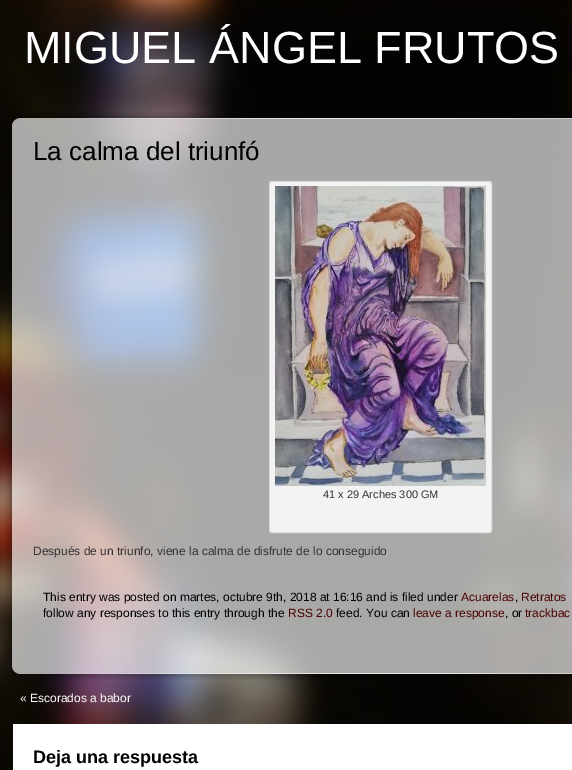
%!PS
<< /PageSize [572 770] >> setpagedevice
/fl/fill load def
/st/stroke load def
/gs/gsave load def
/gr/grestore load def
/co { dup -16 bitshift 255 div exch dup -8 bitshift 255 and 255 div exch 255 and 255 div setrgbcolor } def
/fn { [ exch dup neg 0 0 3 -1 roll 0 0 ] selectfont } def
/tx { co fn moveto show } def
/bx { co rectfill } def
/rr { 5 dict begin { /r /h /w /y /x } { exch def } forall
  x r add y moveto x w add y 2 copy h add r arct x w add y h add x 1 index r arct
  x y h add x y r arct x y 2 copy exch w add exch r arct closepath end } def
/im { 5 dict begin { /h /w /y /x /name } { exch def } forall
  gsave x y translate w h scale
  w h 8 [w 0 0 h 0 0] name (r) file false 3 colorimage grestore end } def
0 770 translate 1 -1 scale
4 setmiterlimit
0 0 572 770 16#FFFFFF bx
(media/1.raw) 0 0 572 770 im
(media/2.raw) 12 112 560 12 im
(media/3.raw) 5 124 567 541 im
16#F3F3F3 co
269.5 181.5 222 351 2.5 rr gs fl gr
16#DDDDDD co
st
(media/4.raw) 275 186 211 300 im
(media/5.raw) 11 665 561 15 im
13 724 559 46 16#FFFFFF bx
(MIGUEL ÁNGEL FRUTOS) 24 63 /LiberationSans-Regular 45 16#FFFFFF tx
(La calma del triunfó) 33 160 /LiberationSans-Regular 26 16#000000 tx
(41 x 29 Arches 300 GM) 323 498 /LiberationSans-Regular 11 16#333333 tx
(Después de un triunfo, viene la calma de disfrute de lo conseguido) 33 555 /LiberationSans-Regular 12 16#333333 tx
(This entry was posted on martes, octubre 9th, 2018 at 16:16 and is filed under) 43 601 /LiberationSans-Regular 12 16#000000 tx
(Acuarelas) 461 601 /LiberationSans-Regular 12 16#4A0000 tx
(,) 515 601 /LiberationSans-Regular 12 16#000000 tx
(Retratos) 521 601 /LiberationSans-Regular 12 16#4A0000 tx
(follow any responses to this entry through the) 43 617 /LiberationSans-Regular 12 16#000000 tx
(RSS 2.0) 288 617 /LiberationSans-Regular 12 16#4A0000 tx
(feed. You can) 336 617 /LiberationSans-Regular 12 16#000000 tx
(leave a response) 413 617 /LiberationSans-Regular 12 16#4A0000 tx
(, or) 505 617 /LiberationSans-Regular 12 16#000000 tx
(trackbac) 525 617 /LiberationSans-Regular 12 16#4A0000 tx
(« Escorados a babor) 20 702 /LiberationSans-Regular 12 16#FFFFFF tx
(Deja una respuesta) 33 763 /LiberationSans-Bold 18 16#000000 tx
showpage
